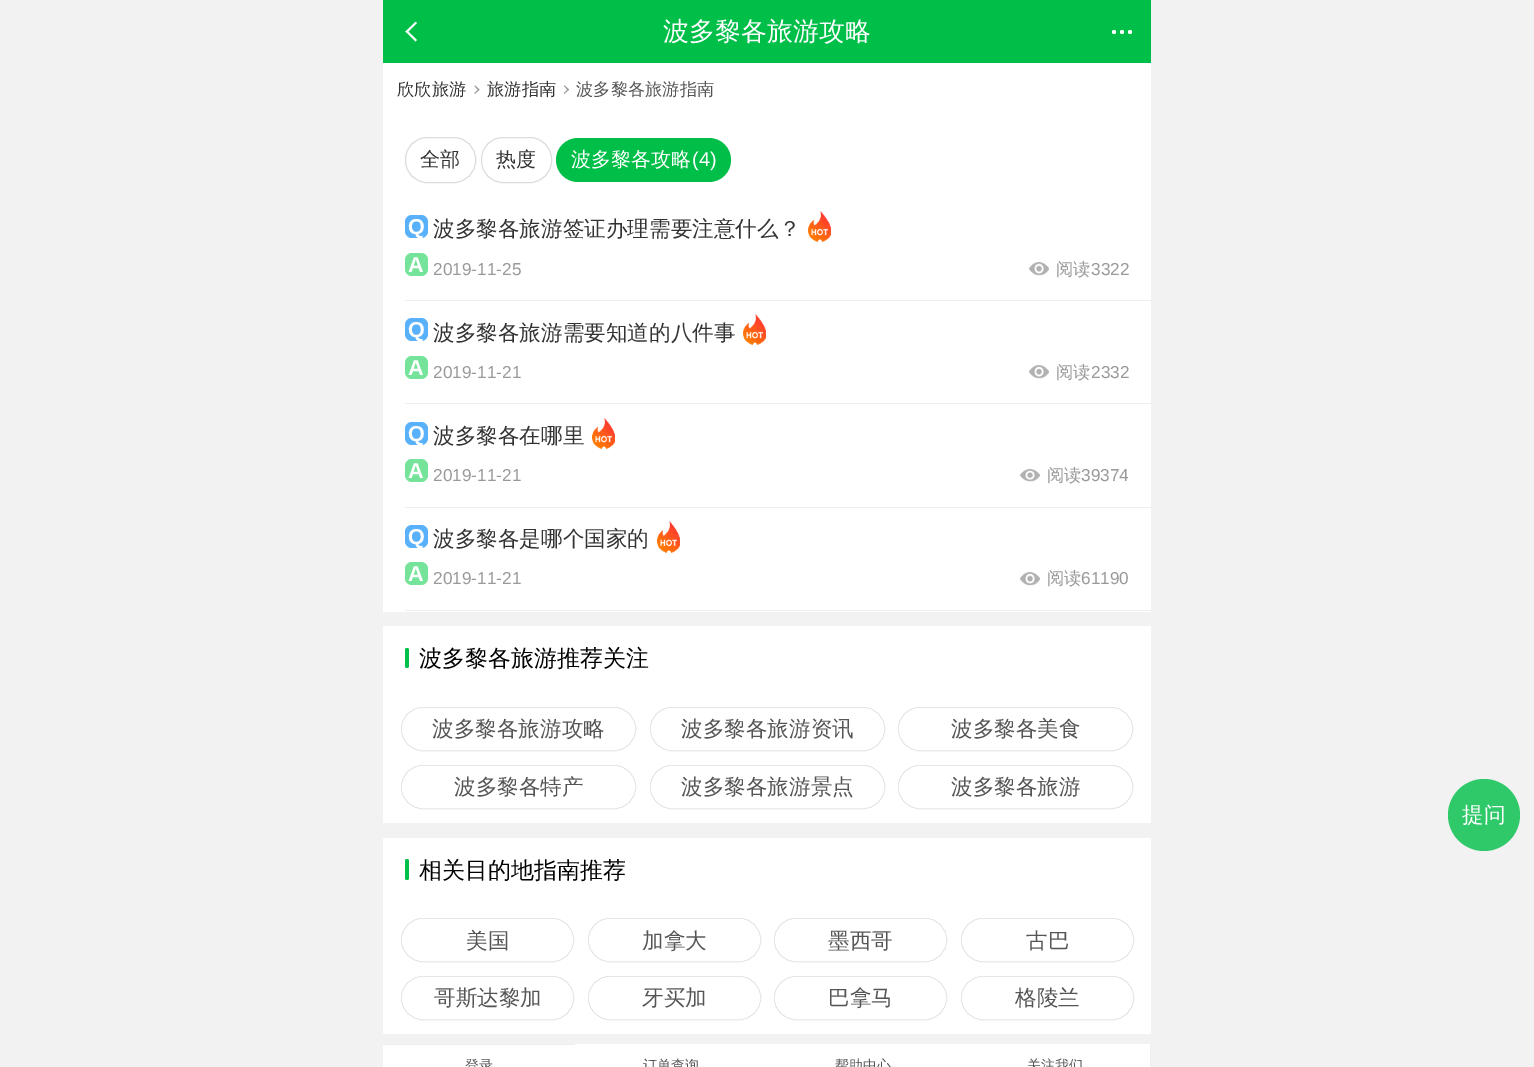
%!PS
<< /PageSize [1534 1067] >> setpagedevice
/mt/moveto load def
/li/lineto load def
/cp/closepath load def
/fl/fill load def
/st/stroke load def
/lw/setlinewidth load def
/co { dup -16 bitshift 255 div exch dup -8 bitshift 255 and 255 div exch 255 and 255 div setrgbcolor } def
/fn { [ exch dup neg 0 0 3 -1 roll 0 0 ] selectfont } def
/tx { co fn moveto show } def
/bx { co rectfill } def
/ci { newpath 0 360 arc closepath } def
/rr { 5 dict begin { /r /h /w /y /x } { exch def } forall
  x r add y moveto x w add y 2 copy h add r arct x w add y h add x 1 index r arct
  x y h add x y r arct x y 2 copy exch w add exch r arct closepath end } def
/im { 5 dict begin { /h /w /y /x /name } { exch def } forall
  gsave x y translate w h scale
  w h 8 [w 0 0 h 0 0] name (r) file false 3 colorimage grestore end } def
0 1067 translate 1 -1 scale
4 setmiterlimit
0 0 1534 1067 16#F2F2F2 bx
383 0 768 63 16#00BF49 bx
16#FFFFFF co
415.5 41.5 mt 405.5 31.5 li 407 30.5 li 417 40 li cp fl
407 33 mt 405.5 31.5 li 415.5 22 li 417 23 li cp fl
1114 32 2 ci fl
1122 32 2 ci fl
1130 32 2 ci fl
383 63 768 549 16#FFFFFF bx
16#999999 co
475 85.5 mt 479.5 89.5 li 478.5 90.5 li 474.5 86 li cp fl
478.5 89 mt 479.5 89.5 li 475 94 li 474.5 93 li cp fl
564.5 85.5 mt 569 89.5 li 568 90.5 li 564 86 li cp fl
568 89 mt 569 89.5 li 564.5 94 li 564 93 li cp fl
16#DDDDDD co
405.5 137.5 70 45 21.5 rr st
481.5 137.5 70 45 21.5 rr st
16#00BF48 co
556 138 175 44 22 rr fl
405 300 746 1 16#EEEEEE bx
16#59B1FB co
405 215 23 23 7 rr fl
(media/1.raw) 808 211 23 31 im
16#75E49A co
405 253 23 23 7 rr fl
(media/2.raw) 1029 262 20 14 im
405 403 746 1 16#EEEEEE bx
16#59B1FB co
405 318 23 23 7 rr fl
(media/3.raw) 743 314 23 31 im
16#75E49A co
405 356 23 23 7 rr fl
(media/2.raw) 1029 365 20 14 im
405 507 746 1 16#EEEEEE bx
16#59B1FB co
405 422 23 23 7 rr fl
(media/3.raw) 592 418 23 31 im
16#75E49A co
405 459 23 23 7 rr fl
(media/4.raw) 1020 469 20 13 im
405 610 746 1 16#EEEEEE bx
16#59B1FB co
405 525 23 23 7 rr fl
(media/5.raw) 657 521 23 32 im
16#75E49A co
405 562 23 23 7 rr fl
(media/2.raw) 1020 572 20 14 im
383 626 768 197 16#FFFFFF bx
16#00BF4B co
405 648 4 20 2 rr fl
16#DDDDDD co
.5 lw
401.25 707.25 234.5 43.5 21.75 rr st
650.25 707.25 234.5 43.5 21.75 rr st
898.25 707.25 234.5 43.5 21.75 rr st
401.25 765.25 234.5 43.5 21.75 rr st
650.25 765.25 234.5 43.5 21.75 rr st
898.25 765.25 234.5 43.5 21.75 rr st
16#30C96A co
1484 815 36 ci fl
383 838 768 196 16#FFFFFF bx
16#00BF4B co
405 859 4 21 2 rr fl
16#DDDDDD co
401.25 918.25 172.5 43.5 21.75 rr st
588.25 918.25 172.5 43.5 21.75 rr st
774.25 918.25 172.5 43.5 21.75 rr st
961.25 918.25 172.5 43.5 21.75 rr st
401.25 976.25 172.5 43.5 21.75 rr st
588.25 976.25 172.5 43.5 21.75 rr st
774.25 976.25 172.5 43.5 21.75 rr st
961.25 976.25 172.5 43.5 21.75 rr st
383 1044 767 23 16#FFFFFF bx
1150 1044 1 23 16#EEEEEE bx
383 1044 192 1 16#EEEEEE bx
(波多黎各旅游攻略) 663 40 /WenQuanYiZenHei-Medium 26 16#FFFFFF tx
(欣欣旅游) 397 95 /WenQuanYiZenHei-Medium 17.25 16#333333 tx
(旅游指南) 487 95 /WenQuanYiZenHei-Medium 17.25 16#333333 tx
(波多黎各旅游指南) 576 95 /WenQuanYiZenHei-Medium 17.25 16#555555 tx
(全部) 420 166 /WenQuanYiZenHei-Medium 20 16#333333 tx
(热度) 496 166 /WenQuanYiZenHei-Medium 20 16#333333 tx
(波多黎各攻略) 571 166 /WenQuanYiZenHei-Medium 20 16#FFFFFF tx
(\(4\)) 692 166 /LiberationSans-Regular 20 16#FFFFFF tx
(Q) 408 234 /LiberationSans-Bold 21.6 16#FFFFFF tx
(波多黎各旅游签证办理需要注意什么？) 433 236 /WenQuanYiZenHei-Medium 21.6 16#333333 tx
(A) 408 272 /LiberationSans-Bold 21.6 16#FFFFFF tx
(2019-11-25) 433 275 /LiberationSans-Regular 17.25 16#999999 tx
(阅读) 1056 275 /WenQuanYiZenHei-Medium 17.25 16#999999 tx
(3322) 1091 275 /LiberationSans-Regular 17.25 16#999999 tx
(Q) 408 337 /LiberationSans-Bold 21.6 16#FFFFFF tx
(波多黎各旅游需要知道的八件事) 433 340 /WenQuanYiZenHei-Medium 21.6 16#333333 tx
(A) 408 375 /LiberationSans-Bold 21.6 16#FFFFFF tx
(2019-11-21) 433 378 /LiberationSans-Regular 17.25 16#999999 tx
(阅读) 1056 378 /WenQuanYiZenHei-Medium 17.25 16#999999 tx
(2332) 1091 378 /LiberationSans-Regular 17.25 16#999999 tx
(Q) 408 441 /LiberationSans-Bold 21.6 16#FFFFFF tx
(波多黎各在哪里) 433 443 /WenQuanYiZenHei-Medium 21.6 16#333333 tx
(A) 408 478 /LiberationSans-Bold 21.6 16#FFFFFF tx
(2019-11-21) 433 481 /LiberationSans-Regular 17.25 16#999999 tx
(阅读) 1047 481 /WenQuanYiZenHei-Medium 17.25 16#999999 tx
(39374) 1081 481 /LiberationSans-Regular 17.25 16#999999 tx
(Q) 408 544 /LiberationSans-Bold 21.6 16#FFFFFF tx
(波多黎各是哪个国家的) 433 546 /WenQuanYiZenHei-Medium 21.6 16#333333 tx
(A) 408 581 /LiberationSans-Bold 21.6 16#FFFFFF tx
(2019-11-21) 433 584 /LiberationSans-Regular 17.25 16#999999 tx
(阅读) 1047 584 /WenQuanYiZenHei-Medium 17.25 16#999999 tx
(61190) 1081 584 /LiberationSans-Regular 17.25 16#999999 tx
(波多黎各旅游推荐关注) 419 666 /WenQuanYiZenHei-Medium 23 16#000000 tx
(波多黎各旅游攻略) 432 736 /WenQuanYiZenHei-Medium 21.6 16#555555 tx
(波多黎各旅游资讯) 681 736 /WenQuanYiZenHei-Medium 21.6 16#555555 tx
(波多黎各美食) 951 736 /WenQuanYiZenHei-Medium 21.6 16#555555 tx
(波多黎各特产) 454 794 /WenQuanYiZenHei-Medium 21.6 16#555555 tx
(波多黎各旅游景点) 681 794 /WenQuanYiZenHei-Medium 21.6 16#555555 tx
(波多黎各旅游) 951 794 /WenQuanYiZenHei-Medium 21.6 16#555555 tx
(提问) 1462 822 /WenQuanYiZenHei-Medium 21.6 16#FFFFFF tx
(相关目的地指南推荐) 419 878 /WenQuanYiZenHei-Medium 23 16#000000 tx
(美国) 466 948 /WenQuanYiZenHei-Medium 21.6 16#555555 tx
(加拿大) 642 948 /WenQuanYiZenHei-Medium 21.6 16#555555 tx
(墨西哥) 828 948 /WenQuanYiZenHei-Medium 21.6 16#555555 tx
(古巴) 1026 948 /WenQuanYiZenHei-Medium 21.6 16#555555 tx
(哥斯达黎加) 434 1005 /WenQuanYiZenHei-Medium 21.6 16#555555 tx
(牙买加) 642 1005 /WenQuanYiZenHei-Medium 21.6 16#555555 tx
(巴拿马) 828 1005 /WenQuanYiZenHei-Medium 21.6 16#555555 tx
(格陵兰) 1015 1005 /WenQuanYiZenHei-Medium 21.6 16#555555 tx
(登录) 465 1070 /WenQuanYiZenHei-Medium 14 16#555555 tx
(订单查询) 643 1070 /WenQuanYiZenHei-Medium 14 16#555555 tx
(帮助中心) 835 1070 /WenQuanYiZenHei-Medium 14 16#555555 tx
(关注我们) 1027 1070 /WenQuanYiZenHei-Medium 14 16#555555 tx
showpage
